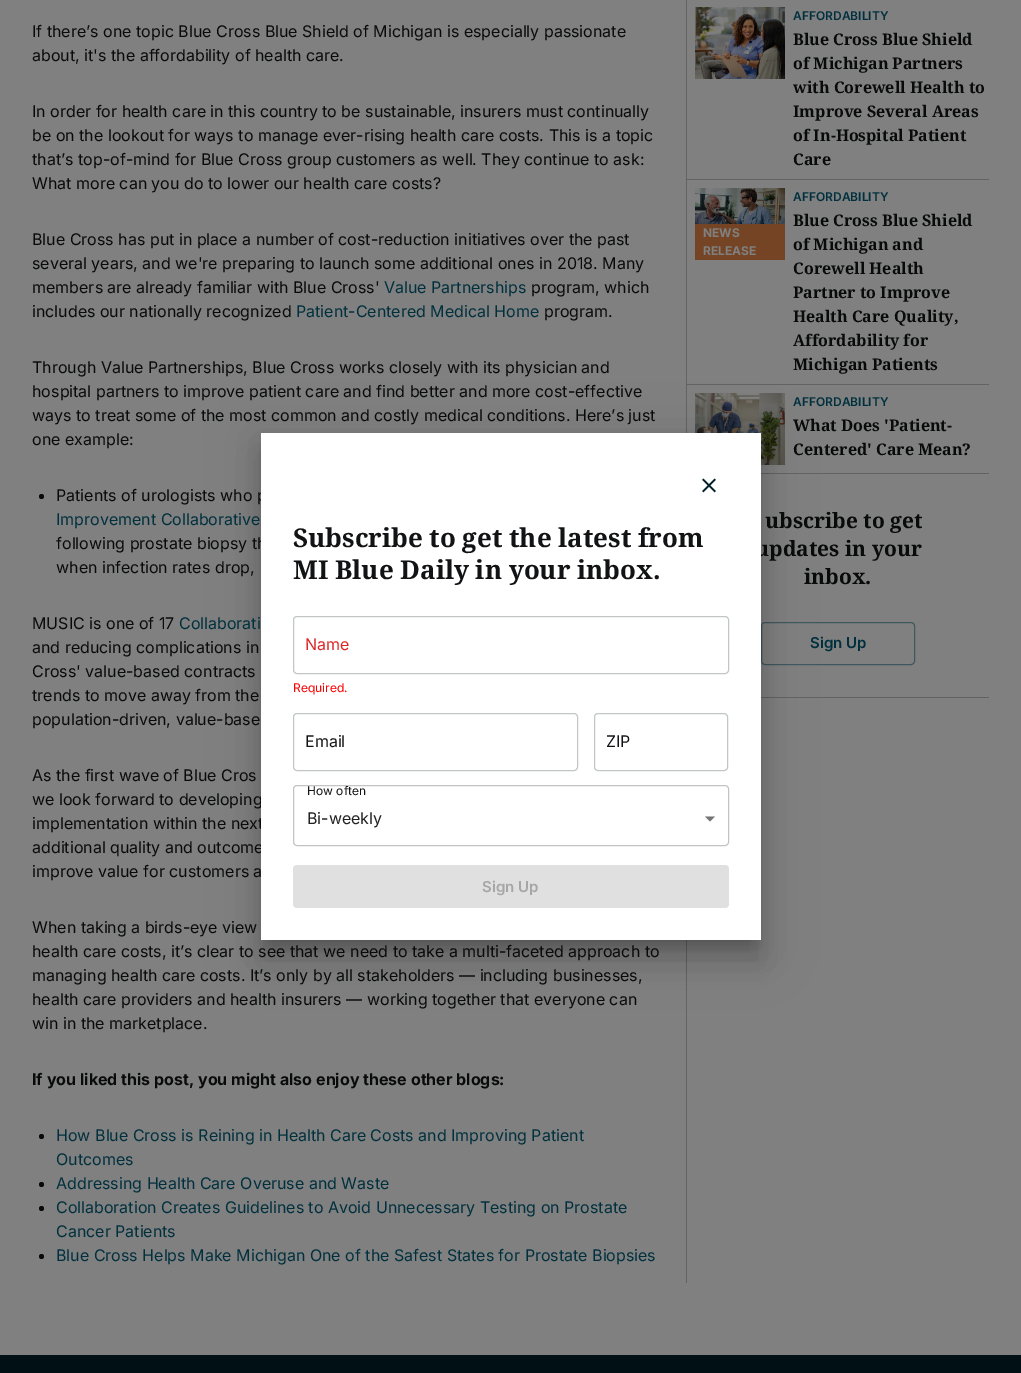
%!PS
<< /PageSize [1021 1373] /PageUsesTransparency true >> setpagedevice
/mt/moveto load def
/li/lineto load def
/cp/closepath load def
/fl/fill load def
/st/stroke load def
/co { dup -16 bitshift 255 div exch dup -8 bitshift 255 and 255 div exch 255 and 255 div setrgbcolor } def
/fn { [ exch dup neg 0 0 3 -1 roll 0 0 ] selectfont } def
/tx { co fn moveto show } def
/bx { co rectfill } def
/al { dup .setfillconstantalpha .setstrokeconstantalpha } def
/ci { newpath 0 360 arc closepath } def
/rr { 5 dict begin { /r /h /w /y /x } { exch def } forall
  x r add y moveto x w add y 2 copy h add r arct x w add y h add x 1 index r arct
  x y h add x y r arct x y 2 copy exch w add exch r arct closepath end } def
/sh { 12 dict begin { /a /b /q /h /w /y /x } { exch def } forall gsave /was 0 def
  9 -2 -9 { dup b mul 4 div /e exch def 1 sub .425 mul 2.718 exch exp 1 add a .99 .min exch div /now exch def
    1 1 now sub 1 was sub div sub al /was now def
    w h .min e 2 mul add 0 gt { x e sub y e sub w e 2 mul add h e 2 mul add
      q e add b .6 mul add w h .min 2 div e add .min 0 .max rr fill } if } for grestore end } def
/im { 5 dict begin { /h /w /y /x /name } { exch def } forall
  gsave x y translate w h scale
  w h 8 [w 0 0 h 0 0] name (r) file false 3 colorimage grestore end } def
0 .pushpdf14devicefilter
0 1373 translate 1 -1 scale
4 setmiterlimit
0 0 1021 1373 16#808080 bx
16#090A0A co
41.5 496.5 2.5 ci fl
41.5 1136.5 2.5 ci fl
41.5 1184.5 2.5 ci fl
41.5 1208.5 2.5 ci fl
41.5 1256.5 2.5 ci fl
686 0 1 1283 16#616364 bx
(media/1.raw) 695 7 90 72 im
687 179 302 1 16#616364 bx
(media/2.raw) 695 188 90 36 im
695 224 90 36 16#744424 bx
687 384 302 1 16#616364 bx
761 473 228 1 16#616364 bx
(media/3.raw) 695 393 90 72 im
761 697 228 1 16#616364 bx
16#40585F co
761.5 622.5 153 42 3.5 rr st
0 1355 1021 18 16#001015 bx
16#000000 co
253 434 516 523 0 23 .12 sh
258 454 506 513 0 19 .14 sh
268 451 486 493 0 7.5 .2 sh
(If there’s one topic Blue Cross Blue Shield of Michigan is especially passionate) 32 37 /Inter-Regular 16 16#090A0A tx
(about, it's the affordability of health care.) 32 61 /Inter-Regular 16 16#090A0A tx
(In order for health care in this country to be sustainable, insurers must continually) 32 117 /Inter-Regular 16 16#090A0A tx
(be on the lookout for ways to manage ever-rising health care costs. This is a topic) 32 141 /Inter-Regular 16 16#090A0A tx
(that’s top-of-mind for Blue Cross group customers as well. They continue to ask:) 32 165 /Inter-Regular 16 16#090A0A tx
(What more can you do to lower our health care costs?) 32 189 /Inter-Regular 16 16#090A0A tx
(Blue Cross has put in place a number of cost-reduction initiatives over the past) 32 245 /Inter-Regular 16 16#090A0A tx
(several years, and we're preparing to launch some additional ones in 2018. Many) 32 269 /Inter-Regular 16 16#090A0A tx
(members are already familiar with Blue Cross') 32 293 /Inter-Regular 16 16#090A0A tx
(Value Partnerships) 384 293 /Inter-Regular 16 16#00303D tx
(program, which) 531 293 /Inter-Regular 16 16#090A0A tx
(includes our nationally recognized) 32 317 /Inter-Regular 16 16#090A0A tx
(Patient-Centered Medical Home) 296 317 /Inter-Regular 16 16#00303D tx
(program.) 544 317 /Inter-Regular 16 16#090A0A tx
(Through Value Partnerships, Blue Cross works closely with its physician and) 32 373 /Inter-Regular 16 16#090A0A tx
(hospital partners to improve patient care and find better and more cost-effective) 32 397 /Inter-Regular 16 16#090A0A tx
(ways to treat some of the most common and costly medical conditions. Here’s just) 32 421 /Inter-Regular 16 16#090A0A tx
(one example:) 32 445 /Inter-Regular 16 16#090A0A tx
(Patients of urologists who p) 56 501 /Inter-Regular 16 16#090A0A tx
(Improvement Collaborative) 56 525 /Inter-Regular 16 16#00303D tx
(following prostate biopsy th) 56 549 /Inter-Regular 16 16#090A0A tx
(when infection rates drop,) 56 573 /Inter-Regular 16 16#090A0A tx
(MUSIC is one of 17) 32 629 /Inter-Regular 16 16#090A0A tx
(Collaborati) 179 629 /Inter-Regular 16 16#00303D tx
(and reducing complications in) 32 653 /Inter-Regular 16 16#090A0A tx
(Cross' value-based contracts) 32 677 /Inter-Regular 16 16#090A0A tx
(trends to move away from the) 32 701 /Inter-Regular 16 16#090A0A tx
(population-driven, value-base) 32 725 /Inter-Regular 16 16#090A0A tx
(As the first wave of Blue Cros) 32 781 /Inter-Regular 16 16#090A0A tx
(we look forward to developing) 32 805 /Inter-Regular 16 16#090A0A tx
(implementation within the next) 32 829 /Inter-Regular 16 16#090A0A tx
(additional quality and outcome) 32 853 /Inter-Regular 16 16#090A0A tx
(improve value for customers a) 32 877 /Inter-Regular 16 16#090A0A tx
(When taking a birds-eye view) 32 933 /Inter-Regular 16 16#090A0A tx
(health care costs, it’s clear to see that we need to take a multi-faceted approach to) 32 957 /Inter-Regular 16 16#090A0A tx
(managing health care costs. It’s only by all stakeholders — including businesses,) 32 981 /Inter-Regular 16 16#090A0A tx
(health care providers and health insurers — working together that everyone can) 32 1005 /Inter-Regular 16 16#090A0A tx
(win in the marketplace.) 32 1029 /Inter-Regular 16 16#090A0A tx
(If you liked this post, you might also enjoy these other blogs:) 32 1085 /Inter-Bold 16 16#090A0A tx
(How Blue Cross is Reining in Health Care Costs and Improving Patient) 56 1141 /Inter-Regular 16 16#00303D tx
(Outcomes) 56 1165 /Inter-Regular 16 16#00303D tx
(Addressing Health Care Overuse and Waste) 56 1189 /Inter-Regular 16 16#00303D tx
(Collaboration Creates Guidelines to Avoid Unnecessary Testing on Prostate) 56 1213 /Inter-Regular 16 16#00303D tx
(Cancer Patients) 56 1237 /Inter-Regular 16 16#00303D tx
(Blue Cross Helps Make Michigan One of the Safest States for Prostate Biopsies) 56 1261 /Inter-Regular 16 16#00303D tx
(AFFORDABILITY) 793 20 /Inter-SemiBold 12 16#00303D tx
(Blue Cross Blue Shield) 793 45 /NotoSerif-Bold 16 16#090A0A tx
(of Michigan Partners) 793 69 /NotoSerif-Bold 16 16#090A0A tx
(with Corewell Health to) 793 93 /NotoSerif-Bold 16 16#090A0A tx
(Improve Several Areas) 793 117 /NotoSerif-Bold 16 16#090A0A tx
(of In-Hospital Patient) 793 141 /NotoSerif-Bold 16 16#090A0A tx
(Care) 793 165 /NotoSerif-Bold 16 16#090A0A tx
(NEWS) 703 237 /Inter-Bold 12 16#808080 tx
(RELEASE) 703 255 /Inter-Bold 12 16#808080 tx
(AFFORDABILITY) 793 201 /Inter-SemiBold 12 16#00303D tx
(Blue Cross Blue Shield) 793 226 /NotoSerif-Bold 16 16#090A0A tx
(of Michigan and) 793 250 /NotoSerif-Bold 16 16#090A0A tx
(Corewell Health) 793 274 /NotoSerif-Bold 16 16#090A0A tx
(Partner to Improve) 793 298 /NotoSerif-Bold 16 16#090A0A tx
(Health Care Quality,) 793 322 /NotoSerif-Bold 16 16#090A0A tx
(Affordability for) 793 346 /NotoSerif-Bold 16 16#090A0A tx
(Michigan Patients) 793 370 /NotoSerif-Bold 16 16#090A0A tx
(AFFORDABILITY) 793 406 /Inter-SemiBold 12 16#00303D tx
(What Does 'Patient-) 793 431 /NotoSerif-Bold 16 16#090A0A tx
(Centered' Care Mean?) 793 455 /NotoSerif-Bold 16 16#090A0A tx
(ubscribe to get) 765 528 /NotoSerif-Bold 21 16#090A0A tx
(updates in your) 755 556 /NotoSerif-Bold 21 16#090A0A tx
(inbox.) 804 584 /NotoSerif-Bold 21 16#090A0A tx
(Sign Up) 810 648 /Inter-SemiBold 15 16#00303D tx
261 433 500 507 16#FFFFFF bx
(media/4.raw) 702 478 14 15 im
(Subscribe to get the latest from) 293 547 /NotoSerif-Bold 25.9 16#121314 tx
(MI Blue Daily in your inbox.) 293 579 /NotoSerif-Bold 25.9 16#121314 tx
16#C2C6C7 co
293.5 616.5 435 57 3.5 rr st
(Name) 305 650 /Inter-Regular 16 16#DC2626 tx
(Required.) 293 692 /Inter-Regular 12 16#FF0000 tx
16#C2C6C7 co
293.5 713.5 284 57 3.5 rr st
(Email) 305 747 /Inter-Regular 16 16#121314 tx
16#C2C6C7 co
594.5 713.5 133 57 3.5 rr st
(ZIP) 606 747 /Inter-Regular 16 16#121314 tx
(Bi-weekly) 307 824 /Inter-Regular 16 16#212121 tx
16#757575 co
705 816.5 mt 710 821.5 li 715 816.5 li cp fl
16#C4C4C4 co
293.5 785.5 435 60 3.5 rr st
(How often) 307 795 /Inter-Regular 12 16#121314 tx
16#E0E0E0 co
293 865 436 43 4 rr fl
(Sign Up) 482 892 /Inter-SemiBold 15 16#A6A6A6 tx
.poppdf14devicefilter showpage
